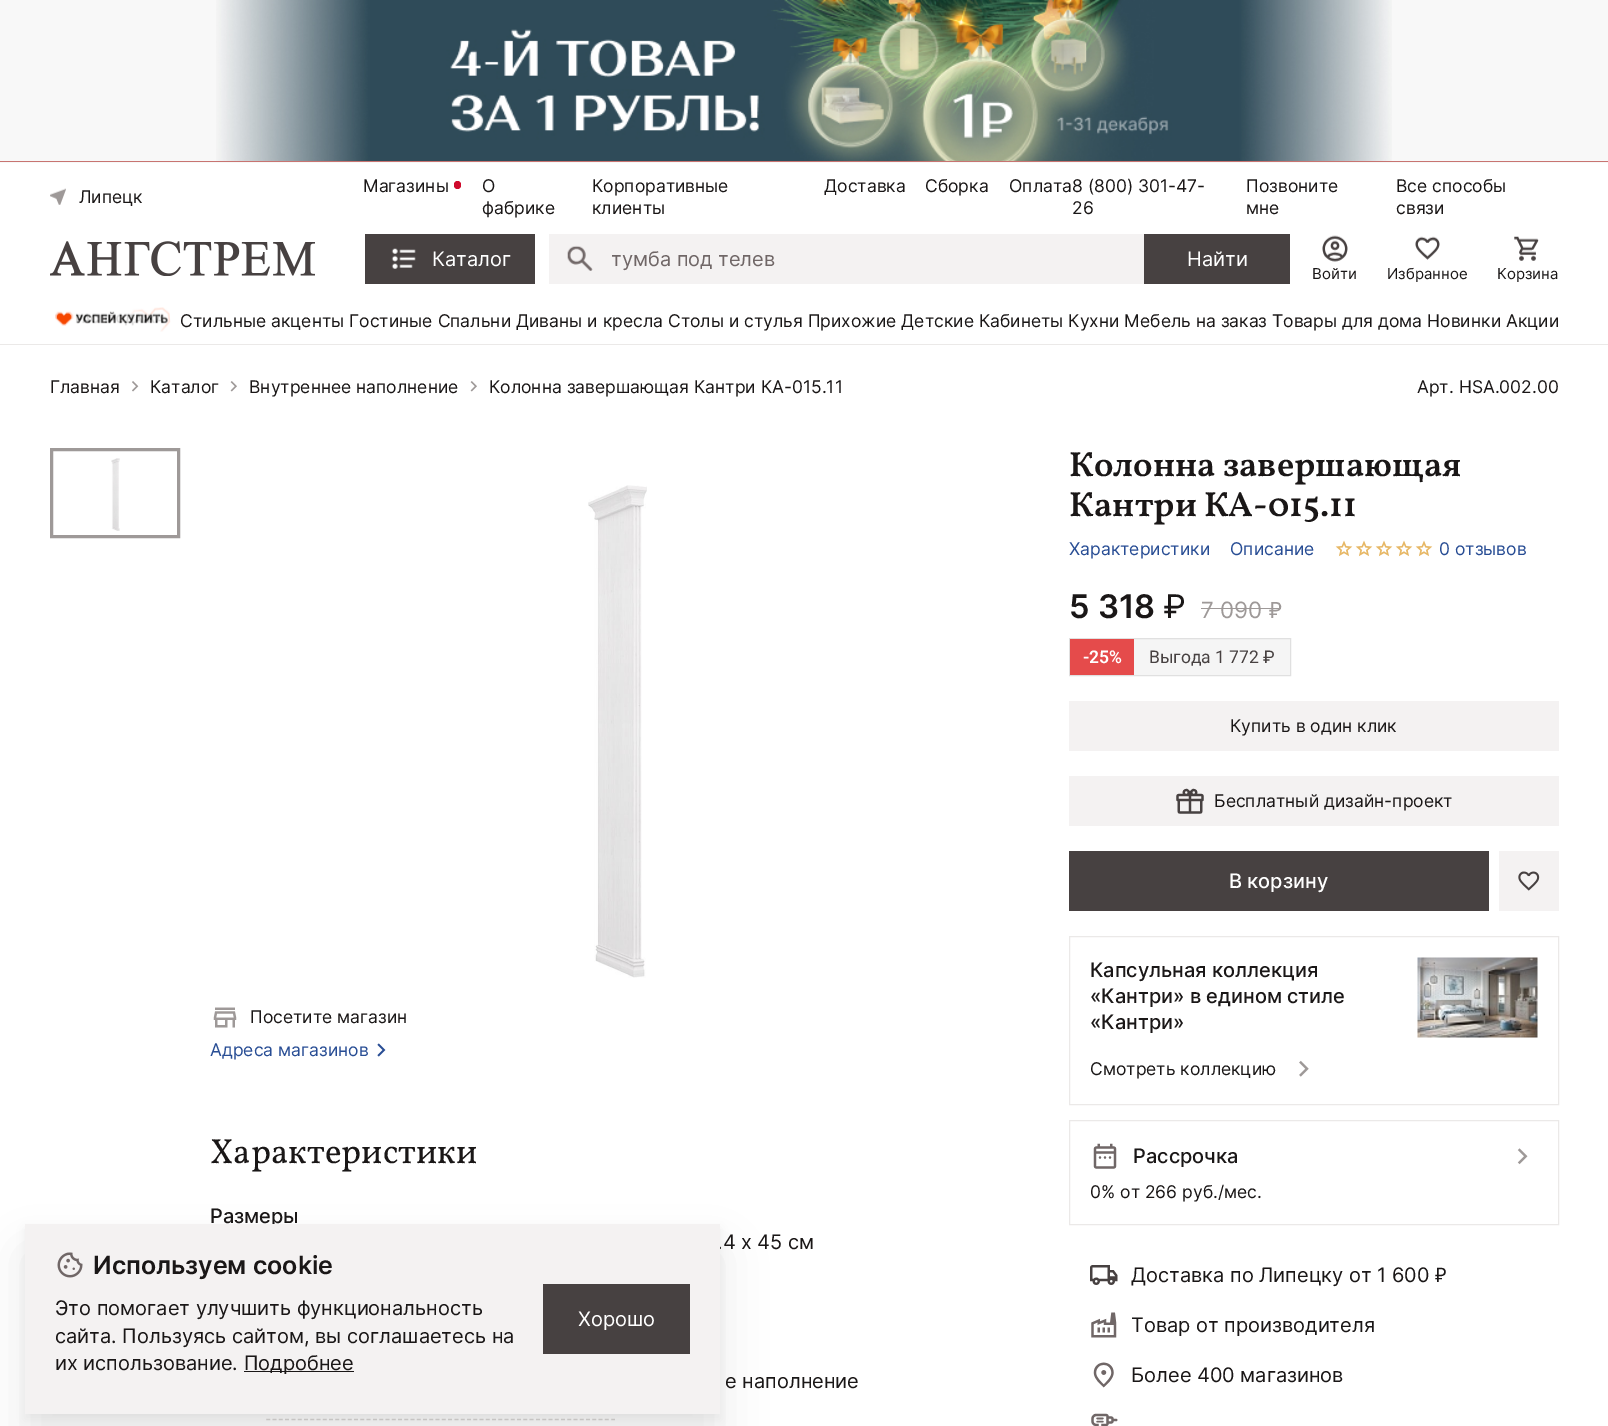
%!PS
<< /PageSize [1608 1426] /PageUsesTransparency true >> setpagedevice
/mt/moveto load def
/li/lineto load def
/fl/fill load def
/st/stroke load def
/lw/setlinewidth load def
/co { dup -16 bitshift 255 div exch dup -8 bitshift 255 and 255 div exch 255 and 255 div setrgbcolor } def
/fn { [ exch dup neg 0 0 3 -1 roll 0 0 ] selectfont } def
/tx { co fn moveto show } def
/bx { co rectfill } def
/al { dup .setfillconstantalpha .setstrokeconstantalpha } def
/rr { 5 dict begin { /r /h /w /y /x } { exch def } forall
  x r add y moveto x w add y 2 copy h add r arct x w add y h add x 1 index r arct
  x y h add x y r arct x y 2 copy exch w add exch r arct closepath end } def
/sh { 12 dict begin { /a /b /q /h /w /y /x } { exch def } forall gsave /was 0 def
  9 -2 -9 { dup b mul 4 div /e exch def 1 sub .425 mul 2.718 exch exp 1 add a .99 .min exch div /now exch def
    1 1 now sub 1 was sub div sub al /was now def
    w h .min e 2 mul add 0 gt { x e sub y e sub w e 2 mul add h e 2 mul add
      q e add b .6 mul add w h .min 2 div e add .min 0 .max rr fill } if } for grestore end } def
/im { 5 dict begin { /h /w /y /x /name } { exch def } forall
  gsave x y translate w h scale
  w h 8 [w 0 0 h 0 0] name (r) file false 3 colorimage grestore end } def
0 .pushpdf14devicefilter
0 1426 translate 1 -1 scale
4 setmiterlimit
0 0 1608 1426 16#FFFFFF bx
0 0 1608 163 16#F8F8F8 bx
(media/1.raw) 216 0 1176 161 im
0 161 1608 1 16#C87471 bx
0 344 1608 1 16#EBE9E8 bx
(media/2.raw) 50 188 16 17 im
16#CF0A2C co
454 181 7 8 3.5 rr fl
(media/3.raw) 50 241 265 35 im
365 234 170 50 16#474141 bx
(media/4.raw) 391 248 25 21 im
549 234 595 50 16#F4F2F2 bx
(media/5.raw) 567 245 26 26 im
1144 234 146 50 16#474141 bx
(media/6.raw) 1322 235 26 27 im
(media/7.raw) 1415 236 25 24 im
(media/8.raw) 1514 236 25 25 im
(media/9.raw) 55 307 116 25 im
(media/10.raw) 132 381 7 11 im
(media/11.raw) 230 381 7 11 im
(media/11.raw) 470 381 7 11 im
16#9E9998 co
3 lw
51.5 449.5 127 87 rectstroke
(media/12.raw) 111 458 9 73 im
(media/13.raw) 588 485 59 493 im
(media/14.raw) 1335 540 98 17 im
1201 608 80 1 16#9E9998 bx
1134 639 156 36 16#F5F5F5 bx
16#E0E0E0 co
1 lw
1069.5 638.5 221 37 rectstroke
1070 639 64 36 16#E54B4B bx
1069 701 490 50 16#F4F2F2 bx
1069 776 490 50 16#F4F2F2 bx
(media/15.raw) 1176 788 28 26 im
1069 851 420 60 16#474141 bx
1499 851 60 60 16#F4F2F2 bx
(media/16.raw) 1518 871 22 20 im
16#EBE9E8 co
1069.5 936.5 489 168 rectstroke
(media/17.raw) 1417 957 121 81 im
(media/18.raw) 1299 1060 10 17 im
1069.5 1120.5 489 104 rectstroke
(media/19.raw) 1093 1143 24 26 im
(media/20.raw) 1517 1148 11 17 im
(media/21.raw) 1090 1265 28 20 im
(media/22.raw) 1091 1312 26 26 im
(media/23.raw) 1093 1362 21 26 im
(media/24.raw) 1091 1413 27 13 im
(media/25.raw) 213 1007 24 21 im
(media/26.raw) 377 1043 9 14 im
16#DBD8D7 co
1.2 lw
[3.75 2.52] 0 setdash
210 1419.5 mt 615 1419.5 li st
210 1418 54 3 16#FFFFFF bx
16#222222 co
25 1254 695 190 0 22 .1 sh
25 1229 695 190 0 5 .05 sh
(Липецк) 79 203 /Inter-Regular 17.5 16#1A1717 tx
(Магазины) 363 192 /Inter-Regular 17.5 16#1A1717 tx
(О) 482 192 /Inter-Regular 17.5 16#1A1717 tx
(фабрике) 482 214 /Inter-Regular 17.5 16#1A1717 tx
(Корпоративные) 592 192 /Inter-Regular 17.5 16#1A1717 tx
(клиенты) 592 214 /Inter-Regular 17.5 16#1A1717 tx
(Доставка) 824 192 /Inter-Regular 17.5 16#1A1717 tx
(Сборка) 925 192 /Inter-Regular 17.5 16#1A1717 tx
(Оплата8 \(800\) 301-47-) 1009 192 /Inter-Regular 17.5 16#1A1717 tx
(26) 1072 214 /Inter-Regular 17.5 16#1A1717 tx
(Позвоните) 1246 192 /Inter-Regular 17.5 16#1A1717 tx
(мне) 1246 214 /Inter-Regular 17.5 16#1A1717 tx
(Все способы) 1396 192 /Inter-Regular 17.5 16#1A1717 tx
(связи) 1396 214 /Inter-Regular 17.5 16#1A1717 tx
(Каталог) 432 266 /Inter-Regular 20 16#FFFFFF tx
(тумба под телев) 611 266 /Inter-Regular 20 16#706767 tx
(Найти) 1187 266 /Inter-Regular 20 16#FFFFFF tx
(Войти) 1312 279 /Inter-Regular 15 16#1A1717 tx
(Избранное) 1387 279 /Inter-Regular 15 16#1A1717 tx
(Корзина) 1497 279 /Inter-Regular 15 16#1A1717 tx
(Стильные акценты Гостиные Спальни Диваны и кресла Столы и стулья Прихожие Детские Кабинеты Кухни Мебель на заказ Товары для дома Новинки Акции) 180 327 /Inter-Regular 17.5 16#1A1717 tx
(Главная) 50 393 /Inter-Regular 17.5 16#1A1717 tx
(Каталог) 150 393 /Inter-Regular 17.5 16#1A1717 tx
(Внутреннее наполнение) 249 393 /Inter-Regular 17.5 16#1A1717 tx
(Колонна завершающая Кантри КА-015.11) 489 393 /Inter-Regular 17.5 16#1A1717 tx
(Арт. HSA.002.00) 1417 393 /Inter-Regular 17.5 16#1A1717 tx
(Колонна завершающая) 1069 476 /Vollkorn-SemiBold 35 16#1A1717 tx
(Кантри КА-015.11) 1069 516 /Vollkorn-SemiBold 35 16#1A1717 tx
(Характеристики) 1069 555 /Inter-Regular 17.5 16#284D94 tx
(Описание) 1230 555 /Inter-Regular 17.5 16#284D94 tx
(0 отзывов) 1439 555 /Inter-Regular 17.5 16#284D94 tx
(5 318) 1069 618 /Inter-SemiBold 32.5 16#1A1717 tx
(₽) 1163 618 /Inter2-Regular 32.5 16#1A1717 tx
(7 090) 1201 618 /Inter-Regular 22.5 16#9E9998 tx
(₽) 1269 618 /NotoSans-Regular 22.5 16#9E9998 tx
(-25%) 1083 663 /Roboto-SemiBold 17.5 16#FFFFFF tx
(Выгода 1 772 ₽) 1149 663 /Roboto-Regular 17.5 16#474141 tx
(Купить в один клик) 1230 732 /Inter-Regular 17.5 16#1A1717 tx
(Бесплатный дизайн-проект) 1214 807 /Inter-Regular 17.5 16#1A1717 tx
(В корзину) 1229 888 /Inter-Medium 20 16#FFFFFF tx
(Капсульная коллекция) 1090 977 /Inter-Medium 20 16#1A1717 tx
(«Кантри» в едином стиле) 1090 1003 /Inter-Medium 20 16#1A1717 tx
(«Кантри») 1090 1029 /Inter-Medium 20 16#1A1717 tx
(Смотреть коллекцию) 1090 1075 /Inter-Regular 17.5 16#1A1717 tx
(Рассрочка) 1133 1163 /Inter-Medium 20 16#1A1717 tx
(0% от 266 руб./мес.) 1090 1198 /Inter-Regular 17.5 16#1A1717 tx
(Доставка по Липецку от 1 600) 1131 1282 /Inter-Regular 20 16#1A1717 tx
(₽) 1435 1282 /NotoSans-Regular 20 16#1A1717 tx
(Товар от производителя) 1131 1332 /Inter-Regular 20 16#1A1717 tx
(Более 400 магазинов) 1131 1382 /Inter-Regular 20 16#1A1717 tx
(Посетите магазин) 250 1023 /Inter-Regular 17.5 16#1A1717 tx
(Адреса магазинов) 210 1056 /Inter-Regular 17.5 16#284D94 tx
(Характеристики) 210 1163 /Vollkorn-Regular 35 16#1A1717 tx
(Размеры) 210 1223 /Inter-Medium 20 16#1A1717 tx
(.4 х 45 см) 717 1249 /Inter-Regular 20 16#1A1717 tx
(е наполнение) 725 1388 /Inter-Regular 20 16#1A1717 tx
25 1224 695 190 16#F4F2F2 bx
(media/27.raw) 57 1252 26 26 im
(Используем cookie) 93 1274 /Inter-SemiBold 25 16#1A1717 tx
(Это помогает улучшить функциональность) 55 1315 /Inter-Regular 20 16#1A1717 tx
(сайта. Пользуясь сайтом, вы соглашаетесь на) 55 1343 /Inter-Regular 20 16#1A1717 tx
(их использование.) 55 1370 /Inter-Regular 20 16#1A1717 tx
244 1371 110 1 16#1A1717 bx
(Подробнее) 244 1370 /Inter-Regular 20 16#1A1717 tx
543 1284 147 70 16#474141 bx
(Хорошо) 578 1326 /Inter-Regular 20 16#FFFFFF tx
.poppdf14devicefilter showpage
